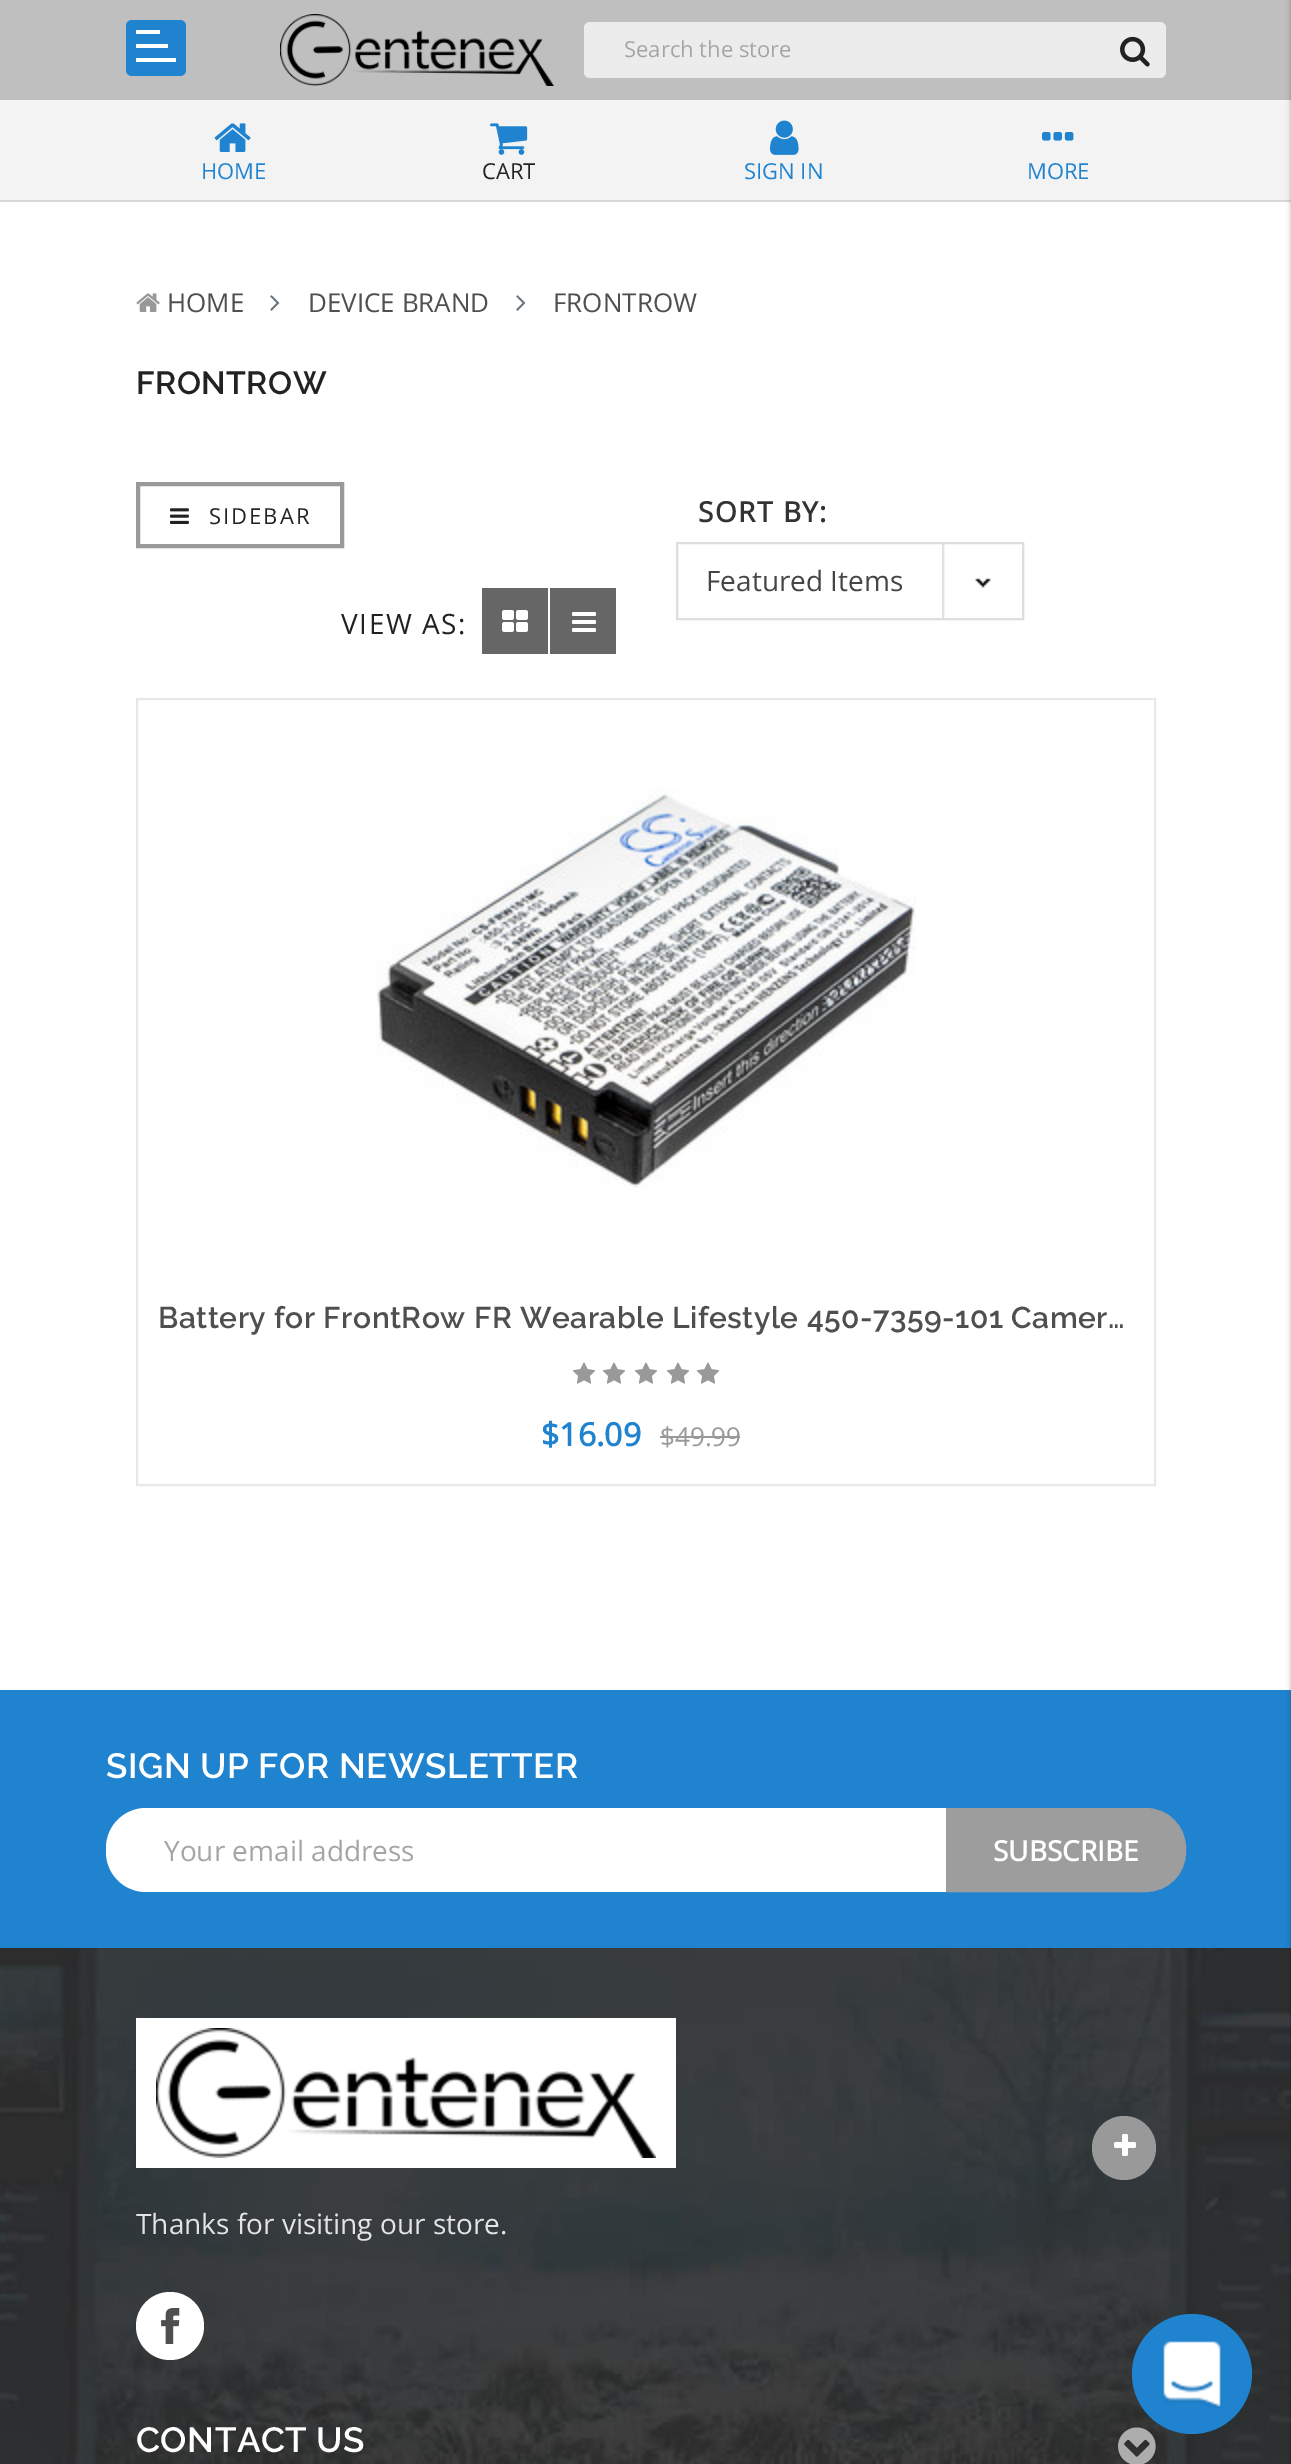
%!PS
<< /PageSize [1291 2464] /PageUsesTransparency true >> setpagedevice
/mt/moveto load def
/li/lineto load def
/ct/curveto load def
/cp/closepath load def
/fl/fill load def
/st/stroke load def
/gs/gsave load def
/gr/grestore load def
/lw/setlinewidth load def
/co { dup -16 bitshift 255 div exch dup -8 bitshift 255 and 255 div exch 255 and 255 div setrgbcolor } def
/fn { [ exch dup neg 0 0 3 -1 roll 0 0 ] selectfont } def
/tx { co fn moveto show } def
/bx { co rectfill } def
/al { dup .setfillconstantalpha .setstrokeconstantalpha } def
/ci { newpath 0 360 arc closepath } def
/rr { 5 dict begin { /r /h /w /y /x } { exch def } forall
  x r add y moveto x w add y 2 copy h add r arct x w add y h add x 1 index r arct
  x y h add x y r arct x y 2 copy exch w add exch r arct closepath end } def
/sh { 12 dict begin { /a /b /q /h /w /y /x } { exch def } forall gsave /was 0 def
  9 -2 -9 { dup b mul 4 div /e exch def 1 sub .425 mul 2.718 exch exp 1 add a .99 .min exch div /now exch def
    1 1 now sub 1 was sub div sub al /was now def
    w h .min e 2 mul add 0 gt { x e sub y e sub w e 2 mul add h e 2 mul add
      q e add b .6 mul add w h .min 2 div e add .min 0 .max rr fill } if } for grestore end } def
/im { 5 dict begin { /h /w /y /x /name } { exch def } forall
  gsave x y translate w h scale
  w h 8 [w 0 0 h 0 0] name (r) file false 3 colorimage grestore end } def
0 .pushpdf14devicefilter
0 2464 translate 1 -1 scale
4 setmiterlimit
0 0 1291 2464 16#FFFFFF bx
0 0 1291 100 16#BFBFBF bx
16#1F83CF co
126 20 60 56 6 rr fl
136 44 32 4 16#FFFFFF bx
136 30 24 4 16#FFFFFF bx
136 58 40 4 16#FFFFFF bx
0 100 1291 100 16#F3F3F3 bx
0 200 1291 2 16#D8D8D8 bx
0 1690 1291 258 16#1F83CF bx
(media/16.raw) 0 1948 1291 516 im
16#000000 co
1290 0 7 2464 0 2 .1 sh
(media/1.raw) 280 14 274 72 im
16#ECECEC co
584 22 582 56 6 rr fl
(media/2.raw) 1120 36 30 31 im
(media/3.raw) 214 123 37 29 im
(media/4.raw) 490 123 38 32 im
(media/5.raw) 770 120 29 35 im
(media/6.raw) 1042 132 32 9 im
16#000000 co
1290 0 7 2464 0 2 .1 sh
(media/7.raw) 136 293 24 19 im
(media/8.raw) 270 295 10 16 im
(media/8.raw) 516 295 10 16 im
16#999999 co
4 lw
138 484 204 62 rectstroke
(media/9.raw) 170 508 19 16 im
482 588 66 66 16#666666 bx
(media/10.raw) 502 610 26 22 im
550 588 66 66 16#666666 bx
(media/11.raw) 572 612 24 20 im
(media/12.raw) 942 544 49 74 im
16#DEDEDE co
2 lw
677 543 346 76 rectstroke
16#E8E8E8 co
137 699 1018 786 rectstroke
(media/13.raw) 376 788 540 400 im
(media/14.raw) 572 1362 24 22 im
(media/14.raw) 602 1362 24 22 im
(media/14.raw) 634 1362 24 22 im
(media/14.raw) 666 1362 24 22 im
(media/14.raw) 696 1362 24 22 im
660 1436 80 2 16#999999 bx
16#FFFFFF co
146 1808 mt 946 1808 li 946 1892 li 146 1892 li 124 1892 106 1874 106 1852 ct 106 1848 li 106 1826 124 1808 146 1808 ct cp fl
16#9D9D9D co
947 1809 mt 1146 1809 li 1167.5 1809 1185 1826.5 1185 1848 ct 1185 1852 li 1185 1873.5 1167.5 1891 1146 1891 ct 947 1891 li cp gs fl gr
st
16#999999 co
1124 2148 32 ci fl
(media/15.raw) 1114 2134 22 22 im
136 2018 540 150 16#FFFFFF bx
(media/17.raw) 156 2028 500 130 im
170 2326 34 ci fl
(media/18.raw) 161 2308 19 36 im
(media/19.raw) 1118 2427 38 37 im
16#1F83CF co
1192 2374 60 ci fl
(media/20.raw) 1162 2341 60 68 im
(Search the store) 624 57 /OpenSans-Regular 22 16#A5A5A5 tx
(HOME) 201 179 /OpenSans-Regular 22 16#1F83CF tx
(CART) 482 179 /OpenSans-Regular 22 16#222222 tx
(SIGN IN) 744 179 /OpenSans-Regular 22 16#1F83CF tx
(MORE) 1027 179 /OpenSans-Regular 22 16#1F83CF tx
(HOME) 167 312 /OpenSans-Regular 26 16#4F4F4F tx
(DEVICE BRAND) 308 312 /OpenSans-Regular 26 16#4F4F4F tx
(FRONTROW) 553 312 /OpenSans-Regular 26 16#4F4F4F tx
/Raleway-SemiBold 32 fn
16#222222 co
136 394 mt .5 0 (FRONTROW) ashow
/OpenSans-Regular 22 fn
209 524 mt 2 0 (SIDEBAR) ashow
/OpenSans-Regular 28 fn
341 634 mt 1.5 0 (VIEW AS:) ashow
/OpenSans-Bold 28 fn
16#333333 co
698 522 mt 1.5 0 (SORT BY:) ashow
(Featured Items) 706 591 /OpenSans-Regular 28 16#454545 tx
/Raleway-SemiBold 30 fn
16#4F4F4F co
158 1328 mt .5 0 (Battery for FrontRow FR Wearable Lifestyle 450-7359-101 Camer…) ashow
($16.09) 541 1446 /OpenSans-Bold 32 16#1F83CF tx
($49.99) 660 1446 /OpenSans-Regular 26 16#999999 tx
/Raleway-SemiBold 35 fn
16#FFFFFF co
106 1778 mt .5 0 (SIGN UP FOR NEWSLETTER) ashow
(Your email address) 164 1861 /OpenSans-Regular 28 16#A5A5A5 tx
(SUBSCRIBE) 993 1861 /OpenSans-Bold 28 16#FFFFFF tx
(Thanks for visiting our store.) 136 2234 /OpenSans-Regular 28 16#E4E4E4 tx
/Raleway-SemiBold 35 fn
16#FFFFFF co
136 2452 mt .5 0 (CONTACT US) ashow
.poppdf14devicefilter showpage
